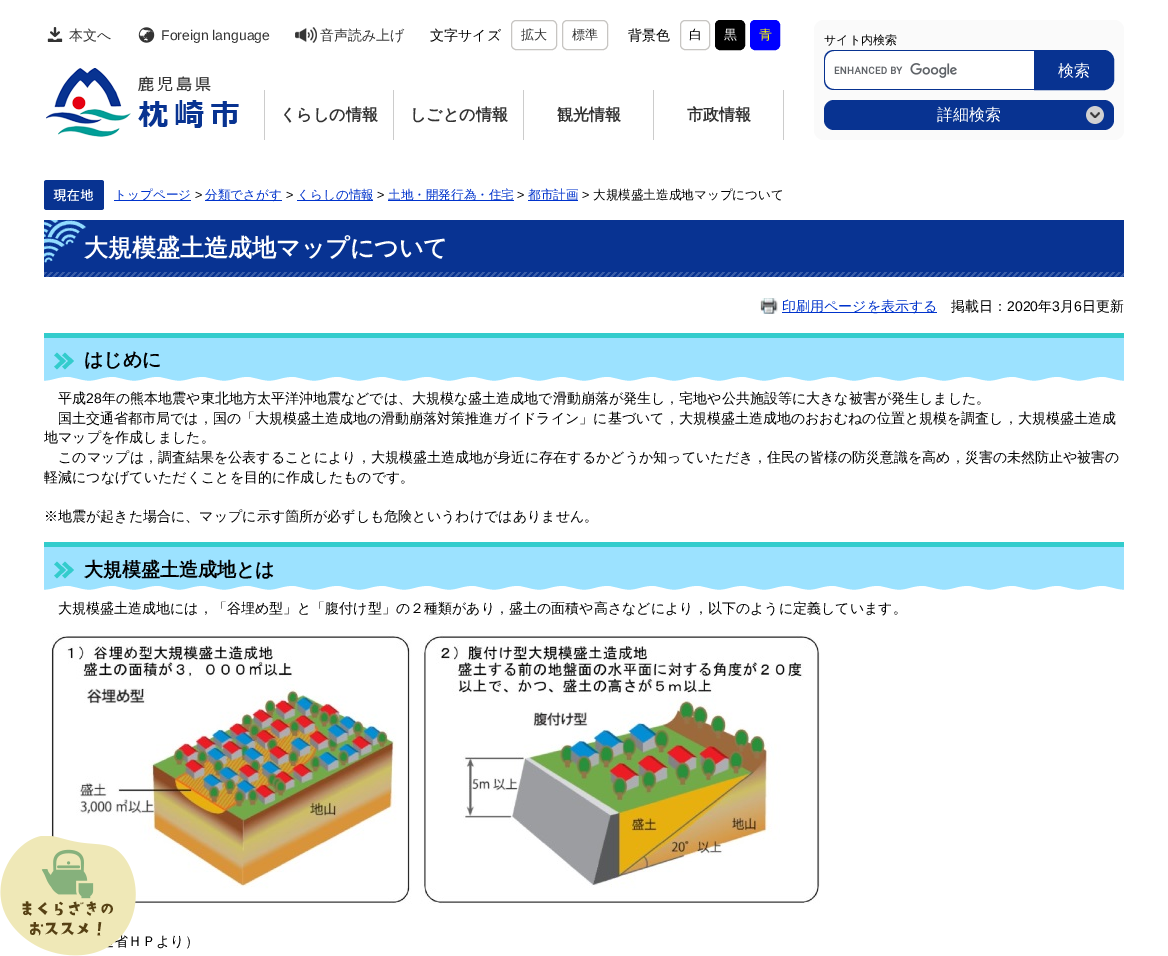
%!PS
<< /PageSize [1168 956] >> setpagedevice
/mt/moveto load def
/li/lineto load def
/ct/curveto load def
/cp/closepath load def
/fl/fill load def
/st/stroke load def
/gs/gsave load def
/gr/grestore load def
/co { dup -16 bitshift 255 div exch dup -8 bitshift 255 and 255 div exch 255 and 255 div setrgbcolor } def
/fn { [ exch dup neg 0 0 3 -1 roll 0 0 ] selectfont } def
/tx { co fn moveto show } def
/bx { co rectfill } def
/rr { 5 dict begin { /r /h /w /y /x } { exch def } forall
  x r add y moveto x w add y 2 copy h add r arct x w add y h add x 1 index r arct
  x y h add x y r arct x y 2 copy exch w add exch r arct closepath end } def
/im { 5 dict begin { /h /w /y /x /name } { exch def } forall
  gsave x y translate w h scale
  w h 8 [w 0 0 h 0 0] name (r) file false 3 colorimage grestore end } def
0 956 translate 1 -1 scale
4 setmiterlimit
0 0 1168 956 16#FFFFFF bx
(media/1.raw) 47 27 16 15 im
(media/2.raw) 138 27 17 16 im
(media/3.raw) 295 27 22 16 im
16#C7C5C2 co
511.5 20.5 45 29 4.5 rr st
562.5 20.5 45 29 4.5 rr st
680.5 20.5 29 29 4.5 rr st
16#000000 co
715.5 20.5 29 29 4.5 rr gs fl gr
st
16#0000FF co
750.5 20.5 29 29 4.5 rr gs fl gr
st
393 90 1 50 16#CCCCCC bx
264 90 1 50 16#CCCCCC bx
523 90 1 50 16#CCCCCC bx
653 90 1 50 16#CCCCCC bx
783 90 1 50 16#CCCCCC bx
(media/4.raw) 46 68 193 69 im
16#FAFAFA co
814 20 310 120 10 rr fl
16#FFFFFF co
834 50 mt 1034 50 li 1034 90 li 834 90 li 828.5 90 824 85.5 824 80 ct 824 60 li 824 54.5 828.5 50 834 50 ct cp fl
(media/5.raw) 834 63 123 15 im
16#083391 co
834 50 mt 1034 50 li 1034 90 li 834 90 li 828 90 824 86 824 80 ct 824 60 li 824 54 828 50 834 50 ct cp 834 51 mt 1034 51 li 1034 89 li 834 89 li 829 89 825 85 825 80 ct 825 60 li 825 55 829 51 834 51 ct cp eofill
1034.5 50.5 mt 1104 50.5 li 1109 50.5 1113.5 55 1113.5 60 ct 1113.5 80 li 1113.5 85 1109 89.5 1104 89.5 ct 1034.5 89.5 li cp gs fl gr
st
824 100 290 30 10 rr fl
(media/6.raw) 1086 106 18 18 im
(media/8.raw) 44 180 60 30 im
114 200 77 1 16#0033CC bx
205 200 77 1 16#0033CC bx
297 200 76 1 16#0033CC bx
388 200 126 1 16#0033CC bx
528 200 50 1 16#0033CC bx
44 220 1080 52 16#083392 bx
(media/9.raw) 44 220 1080 57 im
(media/10.raw) 760 298 18 16 im
782 312 155 1 16#0033CC bx
44 338 1080 43 16#9CE2FF bx
(media/11.raw) 44 352 1080 32 im
44 333 1080 5 16#33CCCC bx
44 547 1080 43 16#9CE2FF bx
(media/11.raw) 44 561 1080 32 im
44 542 1080 5 16#33CCCC bx
(media/12.raw) 51 633 769 271 im
(本文へ) 69 40 /WenQuanYiZenHei-Medium 14 16#333333 tx
(Foreign language) 161 40 /LiberationSans-Regular 14 16#333333 tx
(音声読み上げ) 320 40 /WenQuanYiZenHei-Medium 14 16#333333 tx
(文字サイズ) 430 40 /WenQuanYiZenHei-Medium 14 16#000000 tx
(拡大) 521 39 /WenQuanYiZenHei-Medium 13 16#333333 tx
(標準) 572 39 /WenQuanYiZenHei-Medium 13 16#333333 tx
(背景色) 628 40 /WenQuanYiZenHei-Medium 14 16#000000 tx
(白) 689 39 /WenQuanYiZenHei-Medium 13 16#000000 tx
(黒) 724 39 /WenQuanYiZenHei-Medium 13 16#FFFFFF tx
(青) 759 39 /WenQuanYiZenHei-Medium 13 16#FFFF00 tx
(くらしの情報) 280 120 /WenQuanYiZenHei-Bold 16 16#333333 tx
(しごとの情報) 410 120 /WenQuanYiZenHei-Bold 16 16#333333 tx
(観光情報) 557 120 /WenQuanYiZenHei-Bold 16 16#333333 tx
(市政情報) 687 120 /WenQuanYiZenHei-Bold 16 16#333333 tx
(サイト内検索) 824 44 /WenQuanYiZenHei-Medium 12 16#000000 tx
(検索) 1058 76 /WenQuanYiZenHei-Medium 16 16#FFFFFF tx
(詳細検索) 937 120 /WenQuanYiZenHei-Medium 16 16#FFFFFF tx
(トップページ) 114 199 /WenQuanYiZenHei-Medium 12.6 16#0033CC tx
(>) 195 199 /LiberationSans-Regular 12.6 16#000000 tx
(分類でさがす) 205 199 /WenQuanYiZenHei-Medium 12.6 16#0033CC tx
(>) 286 199 /LiberationSans-Regular 12.6 16#000000 tx
(くらしの情報) 297 199 /WenQuanYiZenHei-Medium 12.6 16#0033CC tx
(>) 377 199 /LiberationSans-Regular 12.6 16#000000 tx
(土地・開発行為・住宅) 388 199 /WenQuanYiZenHei-Medium 12.6 16#0033CC tx
(>) 517 199 /LiberationSans-Regular 12.6 16#000000 tx
(都市計画) 528 199 /WenQuanYiZenHei-Medium 12.6 16#0033CC tx
(>) 582 199 /LiberationSans-Regular 12.6 16#000000 tx
(大規模盛土造成地マップについて) 593 199 /WenQuanYiZenHei-Medium 12.6 16#000000 tx
(大規模盛土造成地マップについて) 84 256 /WenQuanYiZenHei-Bold 24 16#FFFFFF tx
(印刷用ページを表示する) 782 311 /WenQuanYiZenHei-Medium 14 16#0033CC tx
(掲載日：) 951 311 /WenQuanYiZenHei-Medium 14 16#000000 tx
(2020) 1007 311 /LiberationSans-Regular 14 16#000000 tx
(年) 1038 311 /WenQuanYiZenHei-Medium 14 16#000000 tx
(3) 1052 311 /LiberationSans-Regular 14 16#000000 tx
(月) 1060 311 /WenQuanYiZenHei-Medium 14 16#000000 tx
(6) 1074 311 /LiberationSans-Regular 14 16#000000 tx
(日更新) 1082 311 /WenQuanYiZenHei-Medium 14 16#000000 tx
(はじめに) 84 366 /WenQuanYiZenHei-Bold 19 16#000000 tx
(平成) 58 403 /WenQuanYiZenHei-Medium 14 16#000000 tx
(28) 86 403 /LiberationSans-Regular 14 16#000000 tx
(年の熊本地震や東北地方太平洋沖地震などでは、大規模な盛土造成地で滑動崩落が発生し，宅地や公共施設等に大きな被害が発生しました。) 102 403 /WenQuanYiZenHei-Medium 14 16#000000 tx
(国土交通省都市局では，国の「大規模盛土造成地の滑動崩落対策推進ガイドライン」に基づいて，大規模盛土造成地のおおむねの位置と規模を調査し，大規模盛土造成) 58 423 /WenQuanYiZenHei-Medium 14 16#000000 tx
(地マップを作成しました。) 44 442 /WenQuanYiZenHei-Medium 14 16#000000 tx
(このマップは，調査結果を公表することにより，大規模盛土造成地が身近に存在するかどうか知っていただき，住民の皆様の防災意識を高め，災害の未然防止や被害の) 58 462 /WenQuanYiZenHei-Medium 14 16#000000 tx
(軽減につなげていただくことを目的に作成したものです。) 44 482 /WenQuanYiZenHei-Medium 14 16#000000 tx
(※地震が起きた場合に、マップに示す箇所が必ずしも危険というわけではありません。) 44 521 /WenQuanYiZenHei-Medium 14 16#000000 tx
(大規模盛土造成地とは) 84 576 /WenQuanYiZenHei-Bold 19 16#000000 tx
(大規模盛土造成地には，「谷埋め型」と「腹付け型」の２種類があり，盛土の面積や高さなどにより，以下のように定義しています。) 58 613 /WenQuanYiZenHei-Medium 14 16#000000 tx
(省ＨＰより）) 114 946 /WenQuanYiZenHei-Medium 14 16#000000 tx
(media/7.raw) 0 836 136 120 im
showpage
